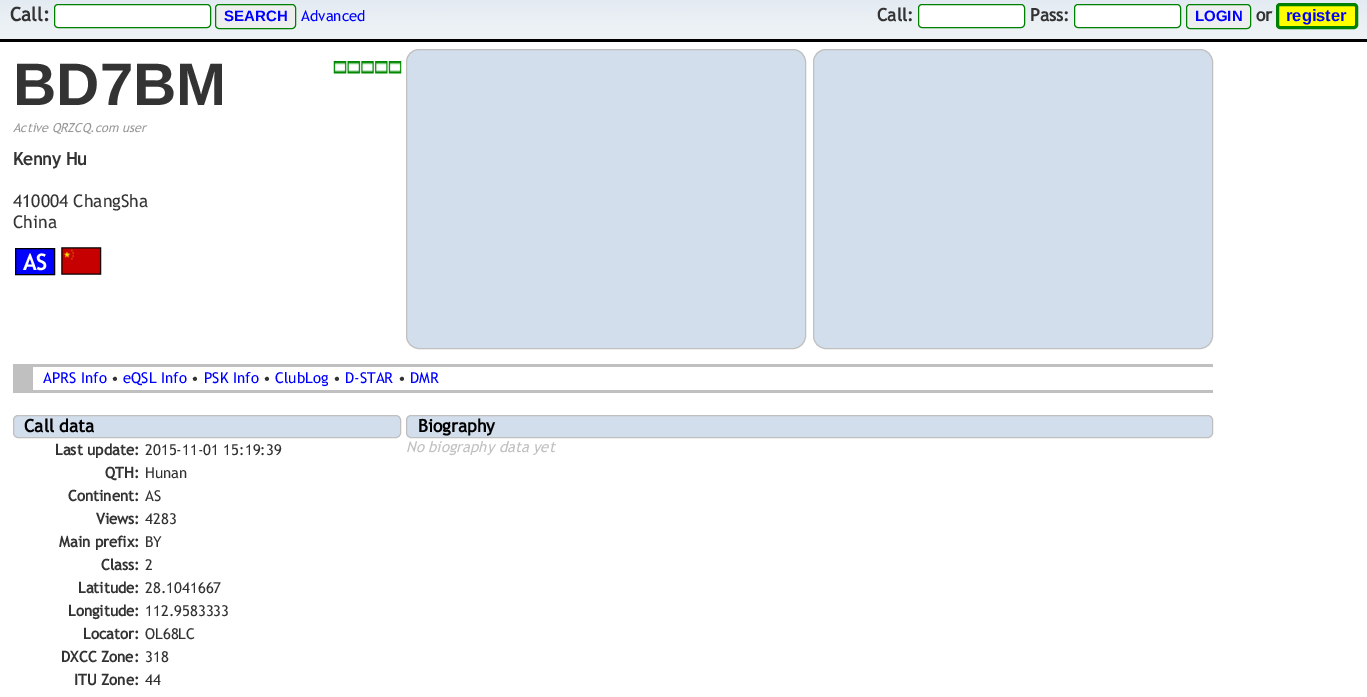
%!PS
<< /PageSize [1367 697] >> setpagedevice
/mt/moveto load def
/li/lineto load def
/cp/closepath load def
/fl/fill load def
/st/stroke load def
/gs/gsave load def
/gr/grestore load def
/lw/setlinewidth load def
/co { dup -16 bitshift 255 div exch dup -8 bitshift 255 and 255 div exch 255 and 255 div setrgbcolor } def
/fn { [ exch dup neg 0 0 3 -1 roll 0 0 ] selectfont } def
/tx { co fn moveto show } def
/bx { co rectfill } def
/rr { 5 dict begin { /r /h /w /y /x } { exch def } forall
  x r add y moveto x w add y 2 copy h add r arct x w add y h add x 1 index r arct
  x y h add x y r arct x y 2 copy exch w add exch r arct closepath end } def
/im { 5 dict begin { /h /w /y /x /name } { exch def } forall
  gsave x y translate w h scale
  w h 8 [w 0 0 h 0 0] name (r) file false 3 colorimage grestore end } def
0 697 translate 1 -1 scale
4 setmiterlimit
0 0 1367 697 16#FFFFFF bx
(media/1.raw) 0 0 1367 39 im
0 39 1367 3 16#000000 bx
16#FFFFFF co
54.5 4.5 156 23 3.5 rr gs fl gr
16#008000 co
st
16#EEEEEE co
215.5 4.5 80 24 3.5 rr gs fl gr
16#008000 co
st
16#FFFFFF co
918.5 4.5 106 23 3.5 rr gs fl gr
16#008000 co
st
16#FFFFFF co
1074.5 4.5 106 23 3.5 rr gs fl gr
16#008000 co
st
16#EEEEEE co
1186.5 4.5 64 24 3.5 rr gs fl gr
16#008000 co
st
16#FFFF00 co
1277.5 4.5 79 23 2.5 rr gs fl gr
16#008000 co
3 lw
st
(media/2.raw) 333 61 69 13 im
16#0000FF co
15.5 248.5 mt 54.5 248.5 li 54.5 274.5 li 15.5 274.5 li cp gs fl gr
16#000000 co
1 lw
st
(media/3.raw) 61 247 41 28 im
16#D2DEEC co
406.5 49.5 399 299 12.5 rr gs fl gr
16#C0C0C0 co
st
16#D2DEEC co
813.5 49.5 399 299 12.5 rr gs fl gr
16#C0C0C0 co
st
33 364 1180 3 16#C0C0C0 bx
33 390 1180 3 16#C0C0C0 bx
13 364 20 29 16#C0C0C0 bx
16#D2DEEC co
13.5 415.5 387 22 4.5 rr gs fl gr
16#C0C0C0 co
st
16#D2DEEC co
406.5 415.5 806 22 4.5 rr gs fl gr
16#C0C0C0 co
st
(Call:) 10 21 /TrebuchetMS-Bold 19 16#333333 tx
(SEARCH) 224 21 /LiberationSans-Bold 15 16#0000FF tx
(Advanced) 301 21 /TrebuchetMS-Regular 15 16#0000FF tx
(Call:) 877 21 /TrebuchetMS-Bold 17.5 16#333333 tx
(Pass:) 1030 21 /TrebuchetMS-Bold 17.5 16#333333 tx
(LOGIN) 1195 21 /LiberationSans-Bold 15 16#0000FF tx
(or) 1256 21 /TrebuchetMS-Bold 17.5 16#333333 tx
(register) 1286 21 /LiberationSans-Bold 16.5 16#0000FF tx
(BD7BM) 13 105 /LiberationSans-Bold 60 16#333333 tx
(Active QRZCQ.com user) 13 132 /TrebuchetMS-Italic 12.5 16#999999 tx
(Kenny Hu) 13 165 /TrebuchetMS-Bold 17.5 16#333333 tx
(410004 ChangSha) 13 207 /TrebuchetMS-Regular 17.5 16#333333 tx
(China) 13 228 /TrebuchetMS-Regular 17.5 16#333333 tx
(AS) 23 270 /TrebuchetMS-Bold 22 16#FFFFFF tx
(APRS Info) 43 383 /TrebuchetMS-Regular 15 16#0000FF tx
(•) 111 383 /TrebuchetMS-Regular 15 16#333333 tx
(eQSL Info) 123 383 /TrebuchetMS-Regular 15 16#0000FF tx
(•) 191 383 /TrebuchetMS-Regular 15 16#333333 tx
(PSK Info) 204 383 /TrebuchetMS-Regular 15 16#0000FF tx
(•) 263 383 /TrebuchetMS-Regular 15 16#333333 tx
(ClubLog) 275 383 /TrebuchetMS-Regular 15 16#0000FF tx
(•) 333 383 /TrebuchetMS-Regular 15 16#333333 tx
(D-STAR) 345 383 /TrebuchetMS-Regular 15 16#0000FF tx
(•) 398 383 /TrebuchetMS-Regular 15 16#333333 tx
(DMR) 410 383 /TrebuchetMS-Regular 15 16#0000FF tx
(Call data) 24 432 /TrebuchetMS-Bold 17.5 16#000000 tx
(Last update:) 55 455 /TrebuchetMS-Bold 15 16#333333 tx
(2015-11-01 15:19:39) 145 455 /TrebuchetMS-Regular 15 16#333333 tx
(QTH:) 105 478 /TrebuchetMS-Bold 15 16#333333 tx
(Hunan) 145 478 /TrebuchetMS-Regular 15 16#333333 tx
(Continent:) 68 501 /TrebuchetMS-Bold 15 16#333333 tx
(AS) 145 501 /TrebuchetMS-Regular 15 16#333333 tx
(Views:) 96 524 /TrebuchetMS-Bold 15 16#333333 tx
(4283) 145 524 /TrebuchetMS-Regular 15 16#333333 tx
(Main prefix:) 59 547 /TrebuchetMS-Bold 15 16#333333 tx
(BY) 145 547 /TrebuchetMS-Regular 15 16#333333 tx
(Class:) 101 570 /TrebuchetMS-Bold 15 16#333333 tx
(2) 145 570 /TrebuchetMS-Regular 15 16#333333 tx
(Latitude:) 78 593 /TrebuchetMS-Bold 15 16#333333 tx
(28.1041667) 145 593 /TrebuchetMS-Regular 15 16#333333 tx
(Longitude:) 68 616 /TrebuchetMS-Bold 15 16#333333 tx
(112.9583333) 145 616 /TrebuchetMS-Regular 15 16#333333 tx
(Locator:) 83 639 /TrebuchetMS-Bold 15 16#333333 tx
(OL68LC) 145 639 /TrebuchetMS-Regular 15 16#333333 tx
(DXCC Zone:) 61 662 /TrebuchetMS-Bold 15 16#333333 tx
(318) 145 662 /TrebuchetMS-Regular 15 16#333333 tx
(ITU Zone:) 74 685 /TrebuchetMS-Bold 15 16#333333 tx
(44) 145 685 /TrebuchetMS-Regular 15 16#333333 tx
(Biography) 418 432 /TrebuchetMS-Bold 17.5 16#000000 tx
(No biography data yet) 406 452 /TrebuchetMS-Italic 15 16#C0C0C0 tx
showpage
